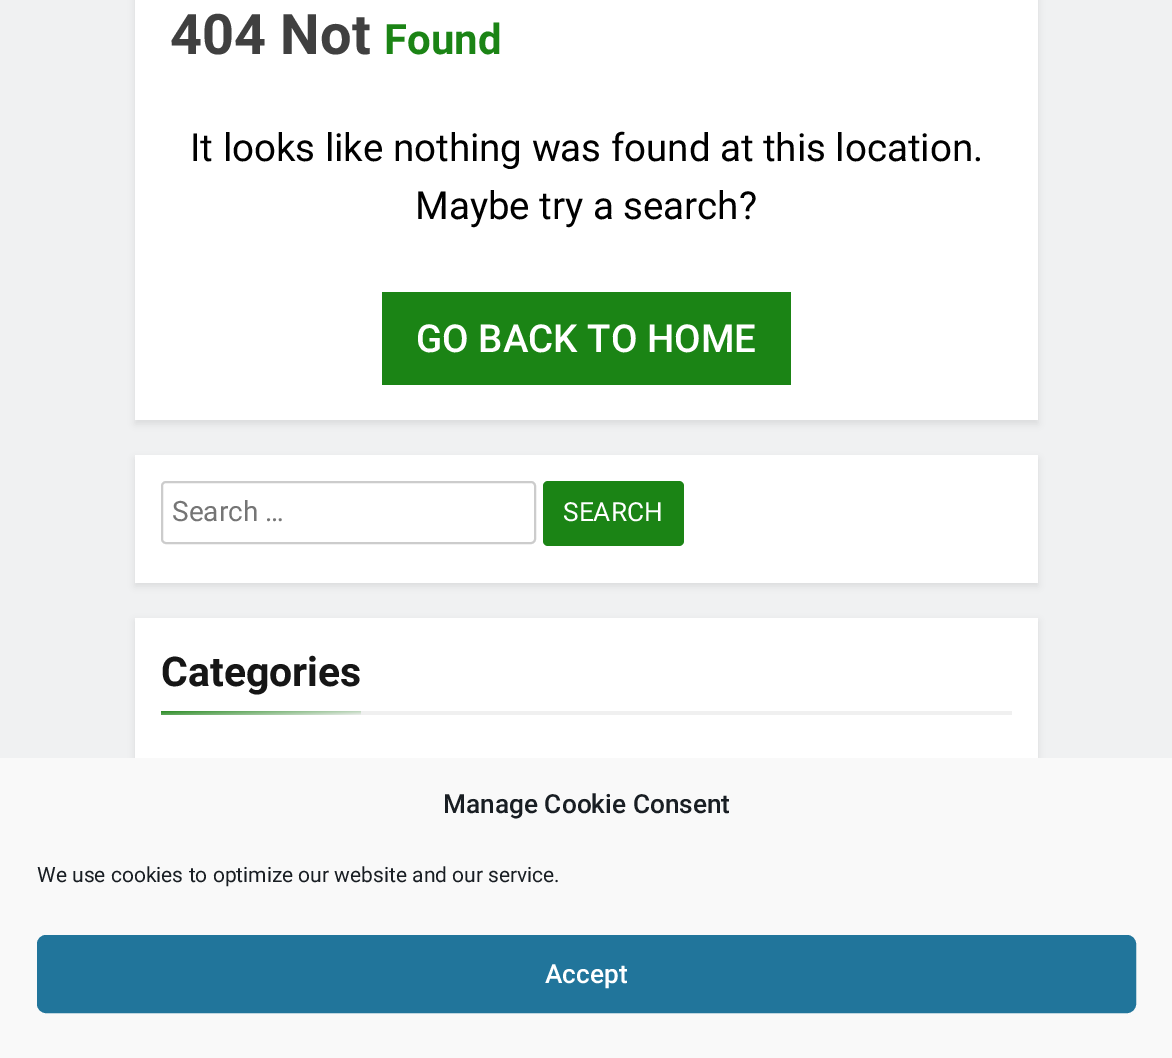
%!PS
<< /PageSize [1172 1058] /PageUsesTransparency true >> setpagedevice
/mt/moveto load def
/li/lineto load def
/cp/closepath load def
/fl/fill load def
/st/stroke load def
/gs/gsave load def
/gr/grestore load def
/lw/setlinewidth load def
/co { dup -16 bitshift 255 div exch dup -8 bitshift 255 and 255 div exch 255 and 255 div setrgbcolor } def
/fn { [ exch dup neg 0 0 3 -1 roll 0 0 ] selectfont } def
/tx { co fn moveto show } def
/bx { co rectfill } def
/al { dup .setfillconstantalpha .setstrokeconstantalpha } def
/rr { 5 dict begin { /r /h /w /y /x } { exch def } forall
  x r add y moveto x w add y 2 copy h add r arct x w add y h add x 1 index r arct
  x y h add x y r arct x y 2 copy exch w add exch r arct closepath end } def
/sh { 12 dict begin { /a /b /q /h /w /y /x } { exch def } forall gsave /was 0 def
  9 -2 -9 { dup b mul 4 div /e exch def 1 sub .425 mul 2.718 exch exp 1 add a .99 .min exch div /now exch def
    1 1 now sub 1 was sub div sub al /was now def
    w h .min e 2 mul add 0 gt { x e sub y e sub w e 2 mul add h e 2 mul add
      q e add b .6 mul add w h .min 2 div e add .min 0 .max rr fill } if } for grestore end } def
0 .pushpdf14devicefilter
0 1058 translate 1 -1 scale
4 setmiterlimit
0 0 1172 1058 16#F0F1F2 bx
16#000000 co
135 -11 903 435 0 3.5 .08 sh
135 0 903 420 16#FFFFFF bx
382 292 409 93 16#1B8415 bx
16#000000 co
135 459 903 127 0 3.5 .08 sh
135 455 903 128 16#FFFFFF bx
16#CCCCCC co
2 lw
162 482 373 61 4 rr st
16#1B8415 co
543 481 141 65 5 rr fl
16#000000 co
135 621 903 286 0 3.5 .08 sh
135 618 903 140 16#FFFFFF bx
361 711 651 4 16#F0F0F0 bx
gs 161 711 mt 361 711 li 361 715 li 161 715 li cp clip newpath
<< /ShadingType 2 /ColorSpace /DeviceRGB /Coords [260 704 261 721] /Extend [true true] /Function << /FunctionType 2 /Domain [0 1] /C0 [.106 .518 .082] /C1 [.941 .941 .941] /N 1 >> >> shfill gr
0 758 1172 300 16#F9F9F9 bx
16#21759B co
38 936 1097 76 8 rr gs fl gr
st
(404 Not) 170 54 /Roboto-Bold 56 16#404040 tx
(Found) 384 54 /Roboto-Bold 42 16#1B8415 tx
(It looks like nothing was found at this location.) 190 161 /Roboto-Regular 38.5 16#000000 tx
(Maybe try a search?) 415 219 /Roboto-Regular 38.5 16#000000 tx
(GO BACK TO HOME) 416 352 /Roboto-Medium 38.5 16#FFFFFF tx
(Search …) 172 521 /Roboto-Regular 28 16#757575 tx
(SEARCH) 563 521 /Roboto-Regular 26.25 16#FFFFFF tx
(Categories) 161 686 /Roboto-Bold 41 16#161616 tx
(Manage Cookie Consent) 443 813 /Roboto-Medium 26.25 16#191E23 tx
(We use cookies to optimize our website and our service.) 37 882 /Roboto-Regular 21 16#191E23 tx
(Accept) 545 983 /Roboto-Medium 26.25 16#FFFFFF tx
.poppdf14devicefilter showpage
